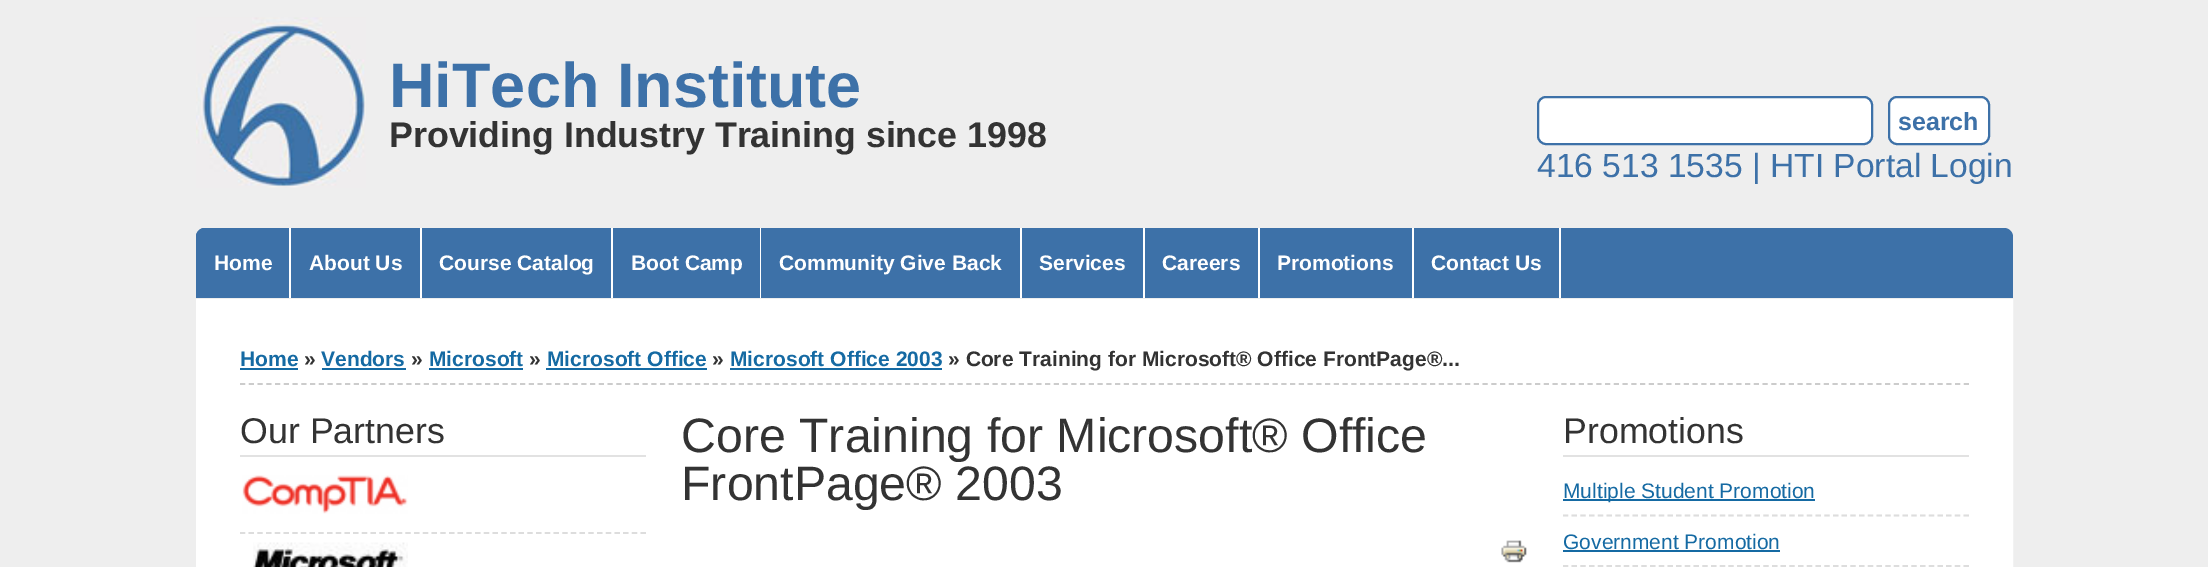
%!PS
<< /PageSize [2208 567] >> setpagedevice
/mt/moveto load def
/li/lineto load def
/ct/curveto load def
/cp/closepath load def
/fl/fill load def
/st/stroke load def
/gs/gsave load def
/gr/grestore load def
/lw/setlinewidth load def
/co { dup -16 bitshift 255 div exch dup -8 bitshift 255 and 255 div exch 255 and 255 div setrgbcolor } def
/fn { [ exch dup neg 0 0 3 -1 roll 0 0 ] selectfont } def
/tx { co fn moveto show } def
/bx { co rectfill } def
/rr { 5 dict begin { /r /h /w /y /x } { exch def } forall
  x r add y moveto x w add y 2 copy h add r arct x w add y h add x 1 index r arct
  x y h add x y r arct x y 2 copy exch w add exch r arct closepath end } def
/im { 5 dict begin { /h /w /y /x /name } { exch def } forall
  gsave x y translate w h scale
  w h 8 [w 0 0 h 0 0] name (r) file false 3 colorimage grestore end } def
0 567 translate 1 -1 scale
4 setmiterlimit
0 0 2208 567 16#EEEEEE bx
(media/1.raw) 196 17 170 171 im
16#FFFFFF co
1538 97 334 47 8 rr gs fl gr
16#3D71A8 co
2 lw
st
16#FFFFFF co
1889 97 100 47 8 rr gs fl gr
16#3D71A8 co
st
205 228 mt 2004 228 li 2009 228 2013 232 2013 237 ct 2013 298 li 196 298 li 196 237 li 196 232 200 228 205 228 ct cp fl
205 228 mt 291 228 li 291 298 li 196 298 li 196 237 li 196 232 200 228 205 228 ct cp fl
289 228 2 70 16#FFFFFF bx
420 228 2 70 16#FFFFFF bx
611 228 2 70 16#FFFFFF bx
760 228 1 70 16#FFFFFF bx
1020 228 2 70 16#FFFFFF bx
1143 228 2 70 16#FFFFFF bx
1258 228 2 70 16#FFFFFF bx
1412 228 2 70 16#FFFFFF bx
1559 228 2 70 16#FFFFFF bx
18 lw
205 308 1799 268 rectstroke
214 317 1781 250 16#FFFFFF bx
16#CCCCCC co
1.8 lw
[5.25 3.5] 0 setdash
240 384 mt 1969 384 li st
240 368 58 2 16#156AA3 bx
322 368 84 2 16#156AA3 bx
429 368 94 2 16#156AA3 bx
546 368 161 2 16#156AA3 bx
730 368 212 2 16#156AA3 bx
240 455 406 2 16#E2E2E2 bx
16#DDDDDD co
[5.25 3.46] 0 setdash
240 533 mt 646 533 li st
(media/2.raw) 242 475 166 39 im
(media/3.raw) 253 542 155 25 im
(media/4.raw) 1501 540 26 23 im
1563 455 406 2 16#E2E2E2 bx
16#DDDDDD co
1563 515.5 mt 1969 515.5 li st
1563 499 252 2 16#156AA3 bx
16#DDDDDD co
1563 566 mt 1969 566 li st
1563 550 217 2 16#156AA3 bx
(HiTech Institute) 389 107 /LiberationSans-Bold 63 16#3D71A8 tx
(Providing Industry Training since 1998) 389 147 /LiberationSans-Bold 35.75 16#333333 tx
(search) 1898 130 /LiberationSans-Bold 25 16#3D71A8 tx
(416 513 1535 | HTI Portal Login) 1537 177 /LiberationSans-Regular 33.6 16#3D71A8 tx
(Home) 214 270 /LiberationSans-Bold 21 16#FFFFFF tx
(About Us) 309 270 /LiberationSans-Bold 21 16#FFFFFF tx
(Course Catalog) 439 270 /LiberationSans-Bold 21 16#FFFFFF tx
(Boot Camp) 631 270 /LiberationSans-Bold 21 16#FFFFFF tx
(Community Give Back) 779 270 /LiberationSans-Bold 21 16#FFFFFF tx
(Services) 1039 270 /LiberationSans-Bold 21 16#FFFFFF tx
(Careers) 1162 270 /LiberationSans-Bold 21 16#FFFFFF tx
(Promotions) 1277 270 /LiberationSans-Bold 21 16#FFFFFF tx
(Contact Us) 1431 270 /LiberationSans-Bold 21 16#FFFFFF tx
(Home) 240 366 /LiberationSans-Bold 21 16#156AA3 tx
(») 304 366 /LiberationSans-Bold 21 16#333333 tx
(Vendors) 321 366 /LiberationSans-Bold 21 16#156AA3 tx
(») 411 366 /LiberationSans-Bold 21 16#333333 tx
(Microsoft) 429 366 /LiberationSans-Bold 21 16#156AA3 tx
(») 529 366 /LiberationSans-Bold 21 16#333333 tx
(Microsoft Office) 547 366 /LiberationSans-Bold 21 16#156AA3 tx
(») 712 366 /LiberationSans-Bold 21 16#333333 tx
(Microsoft Office 2003) 730 366 /LiberationSans-Bold 21 16#156AA3 tx
(» Core Training for Microsoft® Office FrontPage®...) 948 366 /LiberationSans-Bold 21 16#333333 tx
(Our Partners) 240 443 /LiberationSans-Regular 35.75 16#333333 tx
(Core Training for Microsoft® Office) 681 452 /LiberationSans-Regular 48.25 16#333333 tx
(FrontPage® 2003) 681 500 /LiberationSans-Regular 48.25 16#333333 tx
(Promotions) 1563 443 /LiberationSans-Regular 35.75 16#333333 tx
(Multiple Student Promotion) 1563 498 /LiberationSans-Regular 21 16#156AA3 tx
(Government Promotion) 1563 549 /LiberationSans-Regular 21 16#156AA3 tx
showpage
